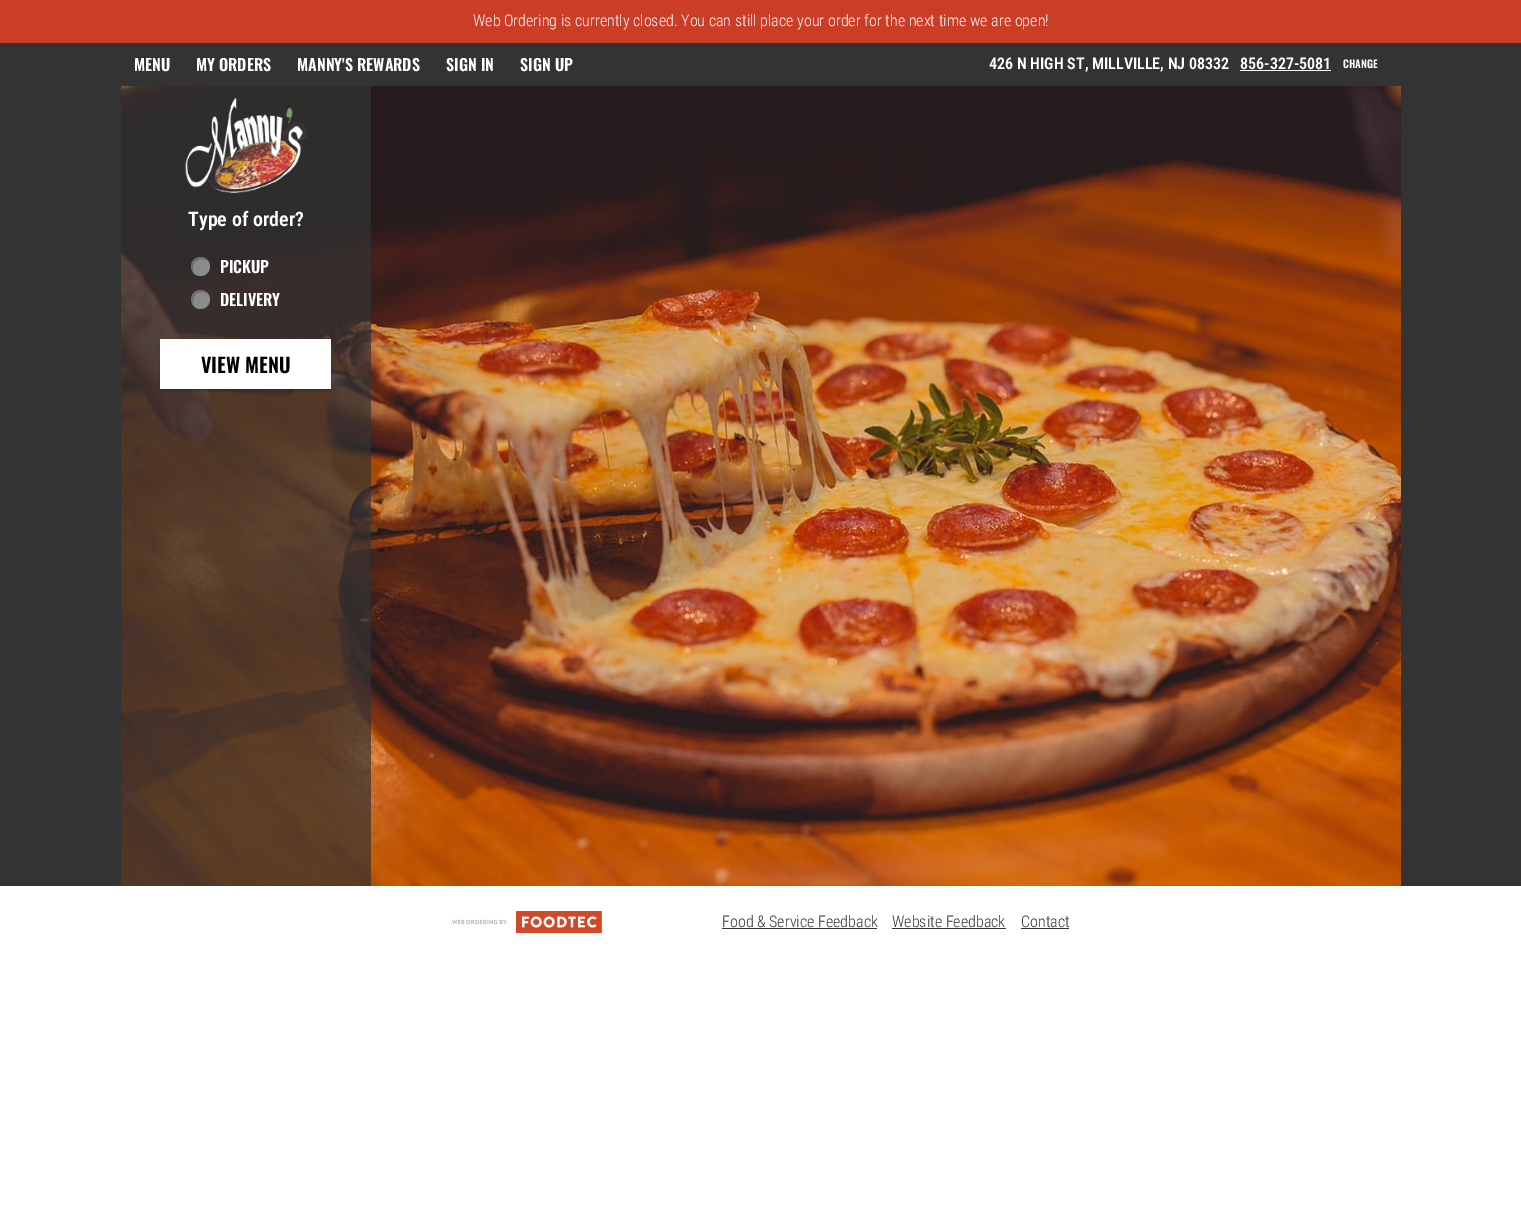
%!PS
<< /PageSize [1521 1230] /PageUsesTransparency true >> setpagedevice
/mt/moveto load def
/ct/curveto load def
/cp/closepath load def
/fl/fill load def
/co { dup -16 bitshift 255 div exch dup -8 bitshift 255 and 255 div exch 255 and 255 div setrgbcolor } def
/fn { [ exch dup neg 0 0 3 -1 roll 0 0 ] selectfont } def
/tx { co fn moveto show } def
/bx { co rectfill } def
/al { dup .setfillconstantalpha .setstrokeconstantalpha } def
/ci { newpath 0 360 arc closepath } def
/rr { 5 dict begin { /r /h /w /y /x } { exch def } forall
  x r add y moveto x w add y 2 copy h add r arct x w add y h add x 1 index r arct
  x y h add x y r arct x y 2 copy exch w add exch r arct closepath end } def
/sh { 12 dict begin { /a /b /q /h /w /y /x } { exch def } forall gsave /was 0 def
  9 -2 -9 { dup b mul 4 div /e exch def 1 sub .425 mul 2.718 exch exp 1 add a .99 .min exch div /now exch def
    1 1 now sub 1 was sub div sub al /was now def
    w h .min e 2 mul add 0 gt { x e sub y e sub w e 2 mul add h e 2 mul add
      q e add b .6 mul add w h .min 2 div e add .min 0 .max rr fill } if } for grestore end } def
/im { 5 dict begin { /h /w /y /x /name } { exch def } forall
  gsave x y translate w h scale
  w h 8 [w 0 0 h 0 0] name (r) file false 3 colorimage grestore end } def
0 .pushpdf14devicefilter
0 1230 translate 1 -1 scale
4 setmiterlimit
0 0 1521 1230 16#FFFFFF bx
0 0 1521 43 16#CA3D26 bx
0 43 1521 843 16#333333 bx
1240 70 91 1 16#FFFFFF bx
(media/1.raw) 121 86 1280 800 im
0.7 al
121 86 250 800 16#333333 bx
1 al
(media/2.raw) 185 98 122 95 im
16#8C8B8B co
200.5 266.5 9.5 ci fl
0.2 al
16#000000 co
202 259 mt 204.5 259 206.5 260 208 261 ct 200 249.5 183.5 264.5 194.5 273.5 ct 191 268 193.5 259 202 259 ct cp fl
1 al
16#8C8B8B co
200.5 299.5 9.5 ci fl
0.2 al
16#000000 co
202 292 mt 204.5 292 206.5 293 208 294 ct 200 282.5 183.5 297.5 194.5 306.5 ct 191 301 193.5 292 202 292 ct cp fl
1 al
160 341 171 50 0 1 .2 sh
160 339 171 50 16#FFFFFF bx
(media/3.raw) 452 911 150 22 im
722 928 155 1 16#333333 bx
892 928 114 1 16#333333 bx
1021 928 48 1 16#333333 bx
(Web Ordering is currently closed. You can still place your order for the next time we are open!) 473 26 /RobotoCondensed-Light 16 16#FFFFFF tx
(MENU) 134 71 /Oswald-SemiBold 16 16#FFFFFF tx
(MY ORDERS) 196 71 /Oswald-SemiBold 16 16#FFFFFF tx
(MANNY'S REWARDS) 297 71 /Oswald-SemiBold 16 16#FFFFFF tx
(SIGN IN) 446 71 /Oswald-SemiBold 16 16#FFFFFF tx
(SIGN UP) 520 71 /Oswald-SemiBold 16 16#FFFFFF tx
(426 N HIGH ST, MILLVILLE, NJ 08332) 989 69 /RobotoCondensed-SemiBold 16 16#FFFFFF tx
(856-327-5081) 1240 69 /RobotoCondensed-SemiBold 16 16#FFFFFF tx
(CHANGE) 1343 68 /Oswald-SemiBold 10.5 16#FFFFFF tx
(Type of order?) 188 226 /RobotoCondensed-SemiBold 20 16#FFFFFF tx
(PICKUP) 220 273 /Oswald-SemiBold 16 16#FFFFFF tx
(DELIVERY) 220 306 /Oswald-SemiBold 16 16#FFFFFF tx
(VIEW MENU) 201 373 /Oswald-SemiBold 20 16#000000 tx
(Food & Service Feedback) 722 927 /RobotoCondensed-Light 16 16#333333 tx
(Website Feedback) 892 927 /RobotoCondensed-Light 16 16#333333 tx
(Contact) 1021 927 /RobotoCondensed-Light 16 16#333333 tx
.poppdf14devicefilter showpage
